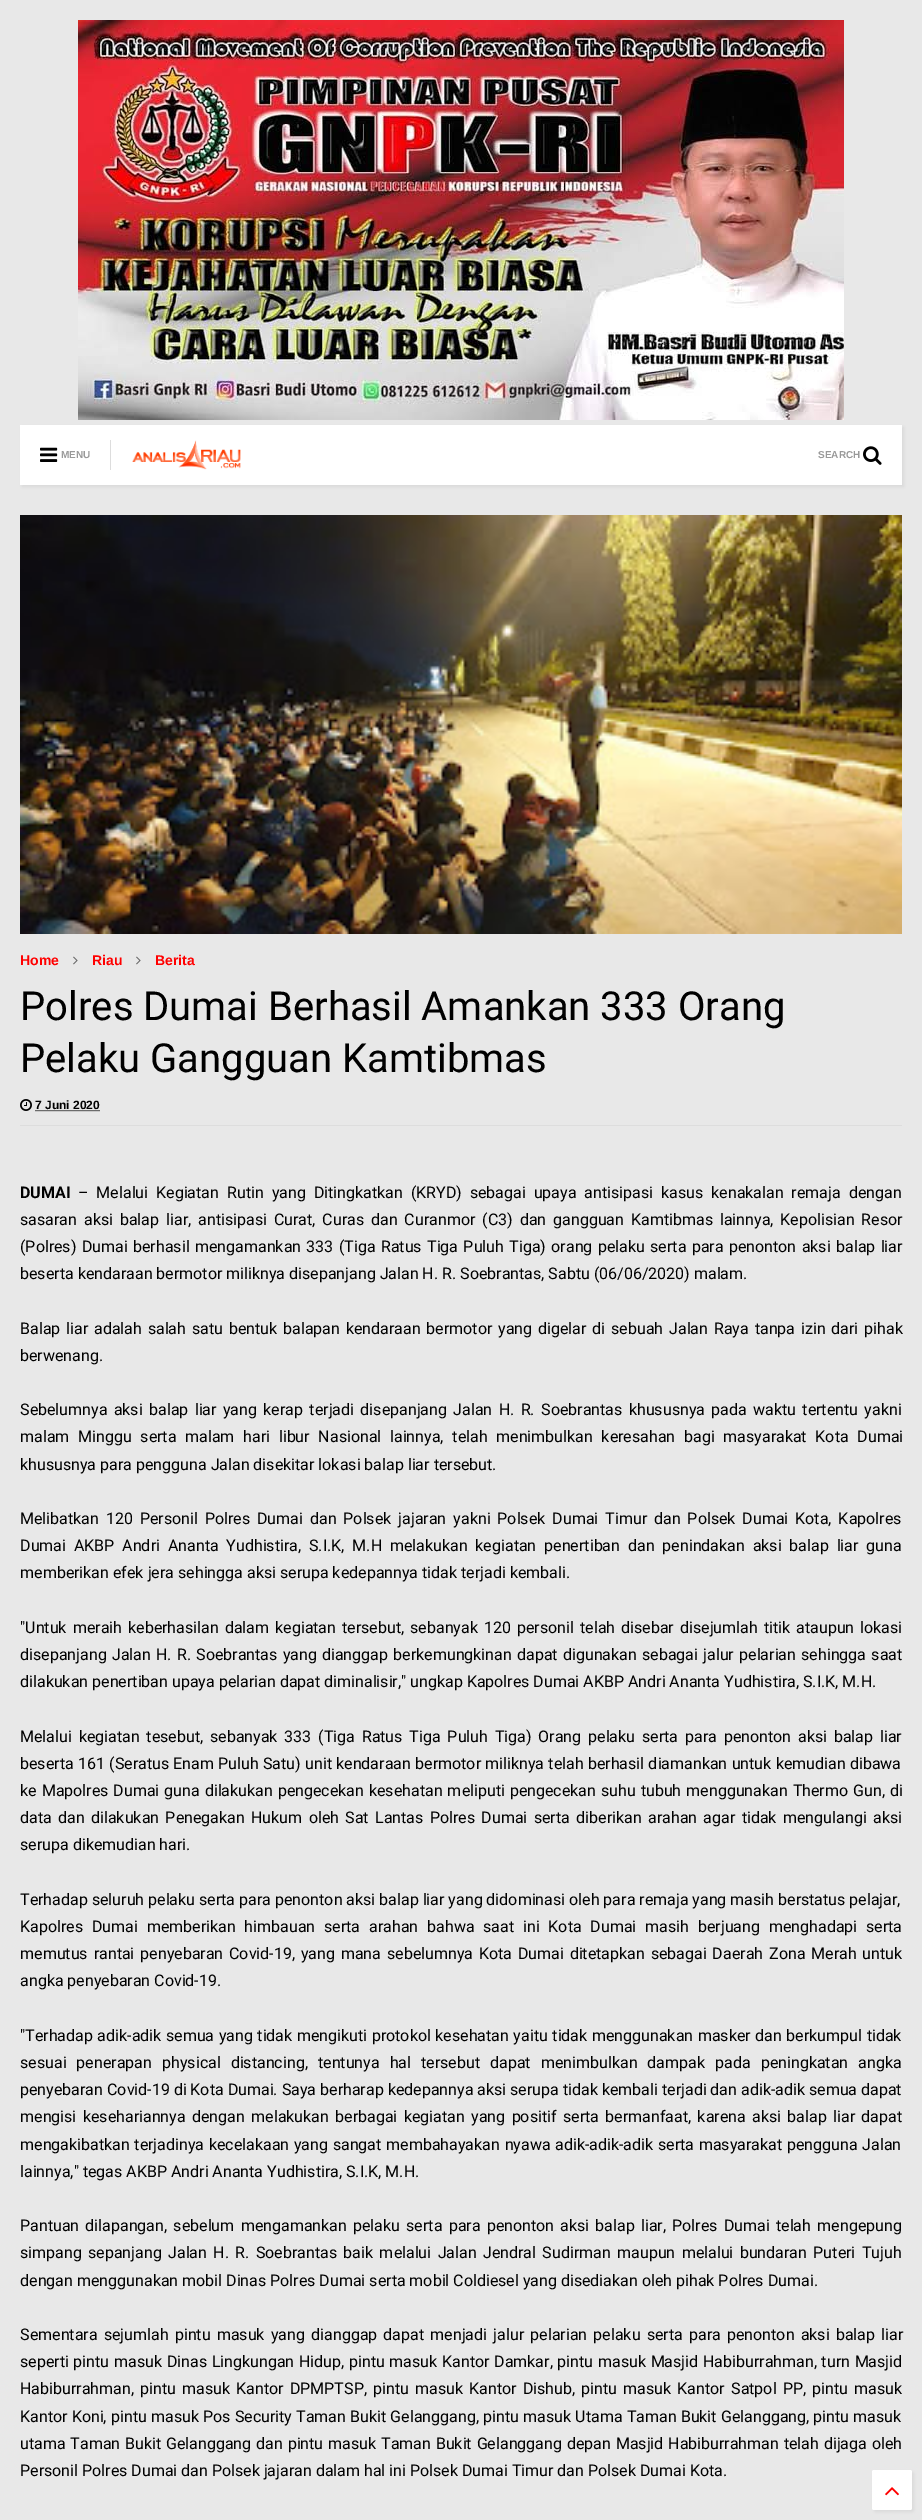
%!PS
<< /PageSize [922 2520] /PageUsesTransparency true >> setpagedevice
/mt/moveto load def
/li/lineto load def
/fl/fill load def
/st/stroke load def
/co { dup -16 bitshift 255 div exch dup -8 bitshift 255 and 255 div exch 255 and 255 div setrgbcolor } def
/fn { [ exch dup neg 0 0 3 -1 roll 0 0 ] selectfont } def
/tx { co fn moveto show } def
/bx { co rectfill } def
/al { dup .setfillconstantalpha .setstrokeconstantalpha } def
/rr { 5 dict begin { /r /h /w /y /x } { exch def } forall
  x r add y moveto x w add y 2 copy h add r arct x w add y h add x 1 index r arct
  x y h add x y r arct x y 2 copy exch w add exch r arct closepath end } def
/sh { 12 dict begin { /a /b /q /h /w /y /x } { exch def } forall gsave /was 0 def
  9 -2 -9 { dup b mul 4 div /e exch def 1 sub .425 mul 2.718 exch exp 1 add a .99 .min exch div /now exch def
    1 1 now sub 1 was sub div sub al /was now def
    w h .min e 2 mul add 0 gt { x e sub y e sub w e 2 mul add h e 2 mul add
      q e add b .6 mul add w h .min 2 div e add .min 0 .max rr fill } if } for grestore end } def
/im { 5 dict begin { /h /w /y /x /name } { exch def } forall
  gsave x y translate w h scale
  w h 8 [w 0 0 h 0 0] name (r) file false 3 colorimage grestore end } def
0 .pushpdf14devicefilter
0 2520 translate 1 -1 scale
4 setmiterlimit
0 0 922 2520 16#E8E8E8 bx
(media/1.raw) 78 20 766 400 im
16#000000 co
22 427 882 60 0 1.5 .05 sh
20 425 882 60 16#FFFFFF bx
(media/2.raw) 40 447 18 15 im
110 440 1 30 16#DDDDDD bx
(media/3.raw) 132 440 109 30 im
(media/4.raw) 863 446 19 19 im
(media/5.raw) 20 515 882 419 im
(media/6.raw) 73 956 5 9 im
(media/6.raw) 136 956 5 9 im
20 1125 882 1 16#DDDDDD bx
(media/7.raw) 20 1099 12 12 im
16#000000 co
[1 1] 0 setdash
35.5 1110.5 mt 100 1110.5 li st
874 2472 40 40 2 1.5 .05 sh
16#FFFFFF co
872 2470 40 40 2 rr fl
(media/8.raw) 885 2487 14 9 im
(MENU) 61 458 /LiberationSans-Bold 10 16#999999 tx
(SEARCH) 818 458 /LiberationSans-Bold 10 16#999999 tx
(Home) 20 965 /LiberationSans-Bold 14 16#FF0000 tx
(Riau) 92 965 /LiberationSans-Bold 14 16#FF0000 tx
(Berita) 155 965 /LiberationSans-Bold 14 16#FF0000 tx
(Polres Dumai Berhasil Amankan 333 Orang) 20 1020 /Roboto-Regular 40 16#000000 tx
(Pelaku Gangguan Kamtibmas) 20 1072 /Roboto-Regular 40 16#000000 tx
(7 Juni 2020) 35 1109 /LiberationSans-Bold 12 16#000000 tx
(DUMAI) 20 1198 /Roboto-Bold 16 16#000000 tx
/Roboto-Regular 16 fn
78 1198 mt 4 0 32 (– Melalui Kegiatan Rutin yang Ditingkatkan \(KRYD\) sebagai upaya antisipasi kasus kenakalan remaja dengan) widthshow
20 1225 mt 3 0 32 (sasaran aksi balap liar, antisipasi Curat, Curas dan Curanmor \(C3\) dan gangguan Kamtibmas lainnya, Kepolisian Resor) widthshow
20 1252 mt 1.4 0 32 (\(Polres\) Dumai berhasil mengamankan 333 \(Tiga Ratus Tiga Puluh Tiga\) orang pelaku serta para penonton aksi balap liar) widthshow
(beserta kendaraan bermotor miliknya disepanjang Jalan H. R. Soebrantas, Sabtu \(06/06/2020\) malam.) 20 1279 /Roboto-Regular 16 16#000000 tx
20 1334 mt 1.9 0 32 (Balap liar adalah salah satu bentuk balapan kendaraan bermotor yang digelar di sebuah Jalan Raya tanpa izin dari pihak) widthshow
(berwenang.) 20 1361 /Roboto-Regular 16 16#000000 tx
20 1415 mt 2.4 0 32 (Sebelumnya aksi balap liar yang kerap terjadi disepanjang Jalan H. R. Soebrantas khususnya pada waktu tertentu yakni) widthshow
20 1442 mt 4.75 0 32 (malam Minggu serta malam hari libur Nasional lainnya, telah menimbulkan keresahan bagi masyarakat Kota Dumai) widthshow
(khususnya para pengguna Jalan disekitar lokasi balap liar tersebut.) 20 1470 /Roboto-Regular 16 16#000000 tx
20 1524 mt 3 0 32 (Melibatkan 120 Personil Polres Dumai dan Polsek jajaran yakni Polsek Dumai Timur dan Polsek Dumai Kota, Kapolres) widthshow
20 1551 mt 3.9 0 32 (Dumai AKBP Andri Ananta Yudhistira, S.I.K, M.H melakukan kegiatan penertiban dan penindakan aksi balap liar guna) widthshow
(memberikan efek jera sehingga aksi serupa kedepannya tidak terjadi kembali.) 20 1578 /Roboto-Regular 16 16#000000 tx
20 1633 mt 2.1 0 32 ("Untuk meraih keberhasilan dalam kegiatan tersebut, sebanyak 120 personil telah disebar disejumlah titik ataupun lokasi) widthshow
20 1660 mt 1.25 0 32 (disepanjang Jalan H. R. Soebrantas yang dianggap berkemungkinan dapat digunakan sebagai jalur pelarian sehingga saat) widthshow
(dilakukan penertiban upaya pelarian dapat diminalisir," ungkap Kapolres Dumai AKBP Andri Ananta Yudhistira, S.I.K, M.H.) 20 1687 /Roboto-Regular 16 16#000000 tx
20 1742 mt 2.9 0 32 (Melalui kegiatan tesebut, sebanyak 333 \(Tiga Ratus Tiga Puluh Tiga\) Orang pelaku serta para penonton aksi balap liar) widthshow
20 1769 mt .3 0 32 (beserta 161 \(Seratus Enam Puluh Satu\) unit kendaraan bermotor miliknya telah berhasil diamankan untuk kemudian dibawa) widthshow
20 1796 mt 1 0 32 (ke Mapolres Dumai guna dilakukan pengecekan kesehatan meliputi pengecekan suhu tubuh menggunakan Thermo Gun, di) widthshow
20 1823 mt 2.4 0 32 (data dan dilakukan Penegakan Hukum oleh Sat Lantas Polres Dumai serta diberikan arahan agar tidak mengulangi aksi) widthshow
(serupa dikemudian hari.) 20 1850 /Roboto-Regular 16 16#000000 tx
(Terhadap seluruh pelaku serta para penonton aksi balap liar yang didominasi oleh para remaja yang masih berstatus pelajar,) 20 1905 /Roboto-Regular 16 16#000000 tx
20 1932 mt 4.9 0 32 (Kapolres Dumai memberikan himbauan serta arahan bahwa saat ini Kota Dumai masih berjuang menghadapi serta) widthshow
20 1959 mt 1.9 0 32 (memutus rantai penyebaran Covid-19, yang mana sebelumnya Kota Dumai ditetapkan sebagai Daerah Zona Merah untuk) widthshow
(angka penyebaran Covid-19.) 20 1986 /Roboto-Regular 16 16#000000 tx
20 2041 mt .6 0 32 ("Terhadap adik-adik semua yang tidak mengikuti protokol kesehatan yaitu tidak menggunakan masker dan berkumpul tidak) widthshow
20 2068 mt 6.1 0 32 (sesuai penerapan physical distancing, tentunya hal tersebut dapat menimbulkan dampak pada peningkatan angka) widthshow
(penyebaran Covid-19 di Kota Dumai. Saya berharap kedepannya aksi serupa tidak kembali terjadi dan adik-adik semua dapat) 20 2095 /Roboto-Regular 16 16#000000 tx
20 2122 mt 2.4 0 32 (mengisi kesehariannya dengan melakukan berbagai kegiatan yang positif serta bermanfaat, karena aksi balap liar dapat) widthshow
20 2150 mt .75 0 32 (mengakibatkan terjadinya kecelakaan yang sangat membahayakan nyawa adik-adik-adik serta masyarakat pengguna Jalan) widthshow
(lainnya," tegas AKBP Andri Ananta Yudhistira, S.I.K, M.H.) 20 2177 /Roboto-Regular 16 16#000000 tx
20 2231 mt 2.25 0 32 (Pantuan dilapangan, sebelum mengamankan pelaku serta para penonton aksi balap liar, Polres Dumai telah mengepung) widthshow
20 2258 mt 2.4 0 32 (simpang sepanjang Jalan H. R. Soebrantas baik melalui Jalan Jendral Sudirman maupun melalui bundaran Puteri Tujuh) widthshow
(dengan menggunakan mobil Dinas Polres Dumai serta mobil Coldiesel yang disediakan oleh pihak Polres Dumai.) 20 2286 /Roboto-Regular 16 16#000000 tx
20 2340 mt 2.25 0 32 (Sementara sejumlah pintu masuk yang dianggap dapat menjadi jalur pelarian pelaku serta para penonton aksi balap liar) widthshow
20 2367 mt .75 0 32 (seperti pintu masuk Dinas Lingkungan Hidup, pintu masuk Kantor Damkar, pintu masuk Masjid Habiburrahman, turn Masjid) widthshow
20 2394 mt 2.25 0 32 (Habiburrahman, pintu masuk Kantor DPMPTSP, pintu masuk Kantor Dishub, pintu masuk Kantor Satpol PP, pintu masuk) widthshow
20 2422 mt .25 0 32 (Kantor Koni, pintu masuk Pos Security Taman Bukit Gelanggang, pintu masuk Utama Taman Bukit Gelanggang, pintu masuk) widthshow
20 2449 mt .9 0 32 (utama Taman Bukit Gelanggang dan pintu masuk Taman Bukit Gelanggang depan Masjid Habiburrahman telah dijaga oleh) widthshow
(Personil Polres Dumai dan Polsek jajaran dalam hal ini Polsek Dumai Timur dan Polsek Dumai Kota.) 20 2476 /Roboto-Regular 16 16#000000 tx
.poppdf14devicefilter showpage
